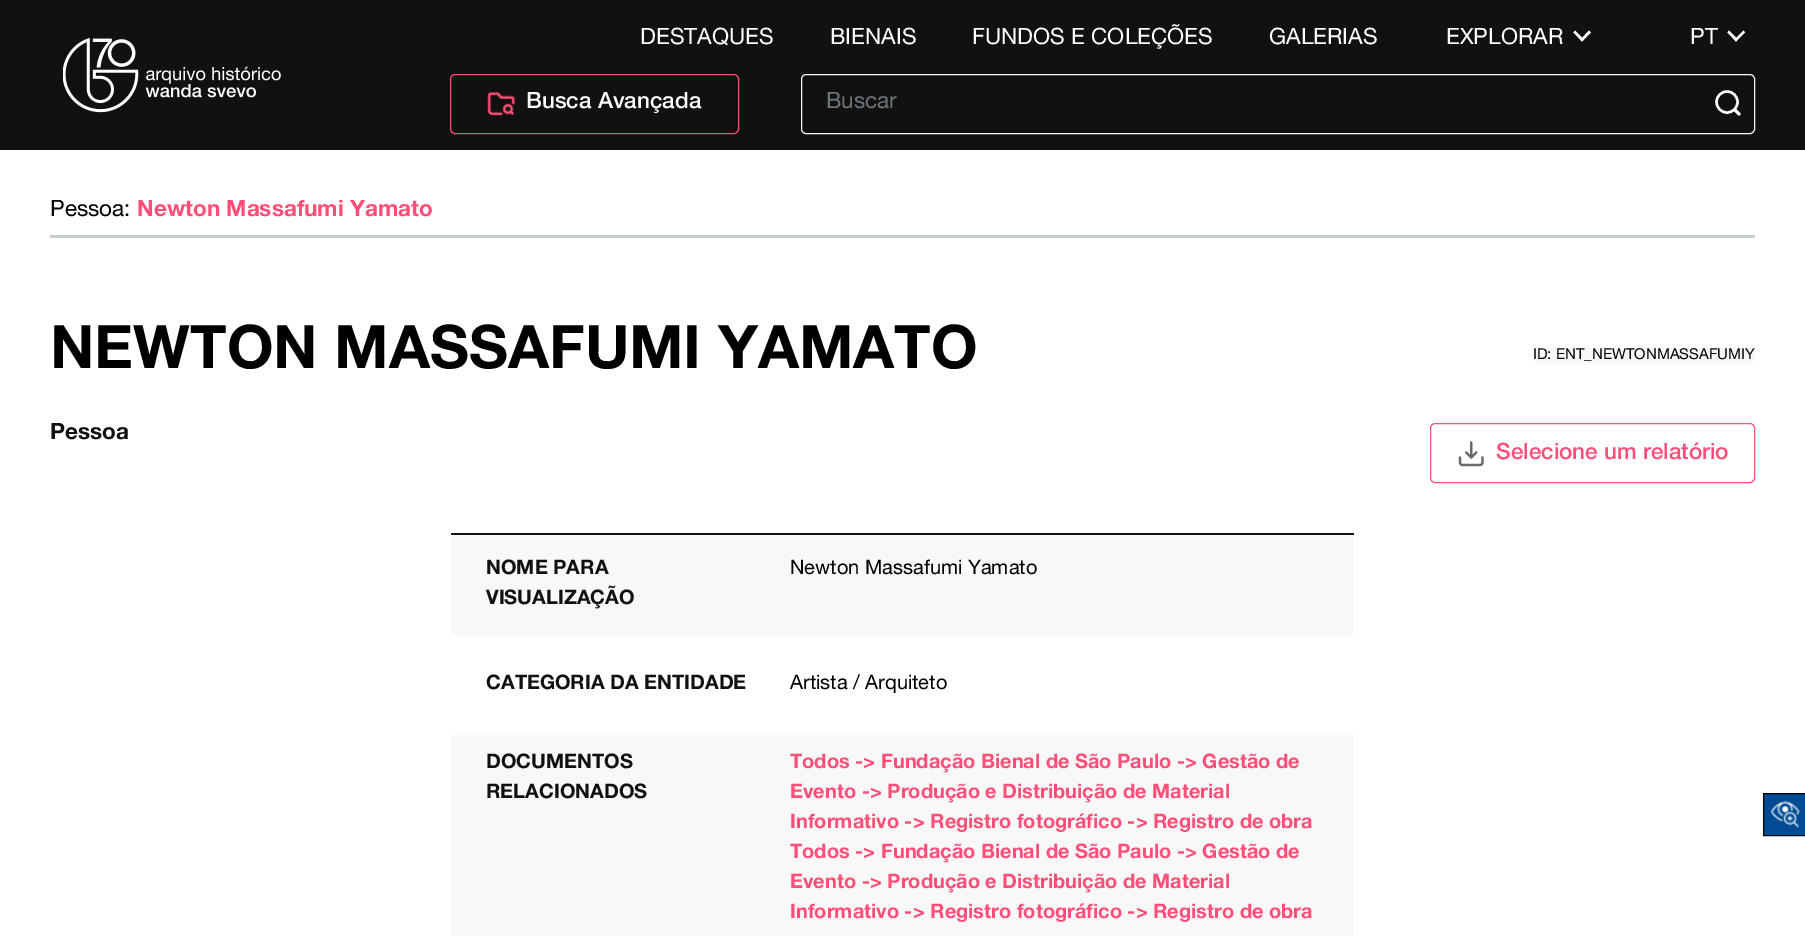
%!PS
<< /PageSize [1805 936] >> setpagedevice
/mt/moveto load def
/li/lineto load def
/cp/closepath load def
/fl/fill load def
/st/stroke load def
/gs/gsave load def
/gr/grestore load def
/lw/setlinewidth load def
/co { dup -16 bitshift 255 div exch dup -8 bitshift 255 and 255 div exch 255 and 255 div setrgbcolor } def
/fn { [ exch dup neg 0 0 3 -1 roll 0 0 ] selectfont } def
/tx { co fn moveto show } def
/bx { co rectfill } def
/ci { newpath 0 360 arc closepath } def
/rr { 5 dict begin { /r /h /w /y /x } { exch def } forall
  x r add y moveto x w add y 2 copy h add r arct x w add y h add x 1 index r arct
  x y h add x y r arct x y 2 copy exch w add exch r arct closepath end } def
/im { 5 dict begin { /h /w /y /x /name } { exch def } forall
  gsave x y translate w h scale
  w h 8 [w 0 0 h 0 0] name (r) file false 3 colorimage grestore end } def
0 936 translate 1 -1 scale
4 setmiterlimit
0 0 1805 936 16#FFFFFF bx
0 0 1805 150 16#11120F bx
(media/1.raw) 63 37 218 76 im
16#FFFFFF co
1589 30.5 mt 1591 32.5 li 1582 41.5 li 1580.5 39.5 li cp fl
1575 30.5 mt 1584 39.5 li 1582 41.5 li 1573.5 32.5 li cp fl
1743.5 30.5 mt 1745 32.5 li 1736 41.5 li 1734.5 39.5 li cp fl
1729 30.5 mt 1738 39.5 li 1736 41.5 li 1727.5 32.5 li cp fl
16#FF4E78 co
450.5 74.5 288 59 4.5 rr st
(media/2.raw) 487 91 29 25 im
16#F8F8F8 co
801.5 74.5 953 59 4.5 rr st
16#FFFFFF co
2.4 lw
1727 102 10.5 ci st
3 lw
1 setlinecap
1735 110 mt 1739 114 li st
50 235 1705 3 16#C8CED3 bx
16#F8F8F8 co
1534 348 221 15 5 rr fl
16#FF4E78 co
1 lw
0 setlinecap
1430.5 423.5 324 59 4.5 rr st
(media/3.raw) 1458 441 26 26 im
451 533 903 2 16#11120F bx
451 535 903 100 16#F8F8F8 bx
451 735 903 201 16#F8F8F8 bx
16#004B93 co
1763.5 793.5 mt 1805.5 793.5 li 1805.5 835.5 li 1763.5 835.5 li cp gs fl gr
16#000000 co
st
(media/4.raw) 1771 801 30 27 im
(DESTAQUES) 640 44 /HelveticaNeue-Regular 22.5 16#FFFFFF tx
(BIENAIS) 830 44 /HelveticaNeue-Regular 22.5 16#FFFFFF tx
(FUNDOS E COLEÇÕES) 972 44 /HelveticaNeue-Regular 22.5 16#FFFFFF tx
(GALERIAS) 1269 44 /HelveticaNeue-Regular 22.5 16#FFFFFF tx
(EXPLORAR) 1446 44 /HelveticaNeue-Regular 22.5 16#FFFFFF tx
(PT) 1690 44 /HelveticaNeue-Regular 22.5 16#FFFFFF tx
(Busca Avançada) 526 108 /HelveticaNeue-Medium 22.5 16#FFFFFF tx
(Buscar) 826 108 /HelveticaNeue-Regular 22.5 16#6C757D tx
(Pessoa:) 50 216 /HelveticaNeue-Regular 22.5 16#000000 tx
(Newton Massafumi Yamato) 137 216 /HelveticaNeue-Bold 22.5 16#FF4E78 tx
(NEWTON MASSAFUMI YAMATO) 50 368 /HelveticaNeue-Bold 60 16#000000 tx
(ID: ENT_NEWTONMASSAFUMIY) 1533 359 /HelveticaNeue-Regular 15 16#000000 tx
(Pessoa) 50 439 /HelveticaNeue-Bold 22.5 16#11120F tx
(Selecione um relatório) 1496 459 /HelveticaNeue-Medium 22.5 16#FF4E78 tx
(NOME PARA) 486 574 /HelveticaNeue-Bold 20 16#11120F tx
(VISUALIZAÇÃO) 486 604 /HelveticaNeue-Bold 20 16#11120F tx
(Newton Massafumi Yamato) 790 574 /HelveticaNeue-Regular 20 16#000000 tx
(CATEGORIA DA ENTIDADE) 486 689 /HelveticaNeue-Bold 20 16#11120F tx
(Artista / Arquiteto) 790 689 /HelveticaNeue-Regular 20 16#000000 tx
(DOCUMENTOS) 486 768 /HelveticaNeue-Bold 20 16#11120F tx
(RELACIONADOS) 486 798 /HelveticaNeue-Bold 20 16#11120F tx
(Todos -> Fundação Bienal de São Paulo -> Gestão de) 790 768 /HelveticaNeue-Bold 20 16#FF4E78 tx
(Evento -> Produção e Distribuição de Material) 790 798 /HelveticaNeue-Bold 20 16#FF4E78 tx
(Informativo -> Registro fotográfico -> Registro de obra) 790 828 /HelveticaNeue-Bold 20 16#FF4E78 tx
(Todos -> Fundação Bienal de São Paulo -> Gestão de) 790 858 /HelveticaNeue-Bold 20 16#FF4E78 tx
(Evento -> Produção e Distribuição de Material) 790 888 /HelveticaNeue-Bold 20 16#FF4E78 tx
(Informativo -> Registro fotográfico -> Registro de obra) 790 918 /HelveticaNeue-Bold 20 16#FF4E78 tx
showpage
